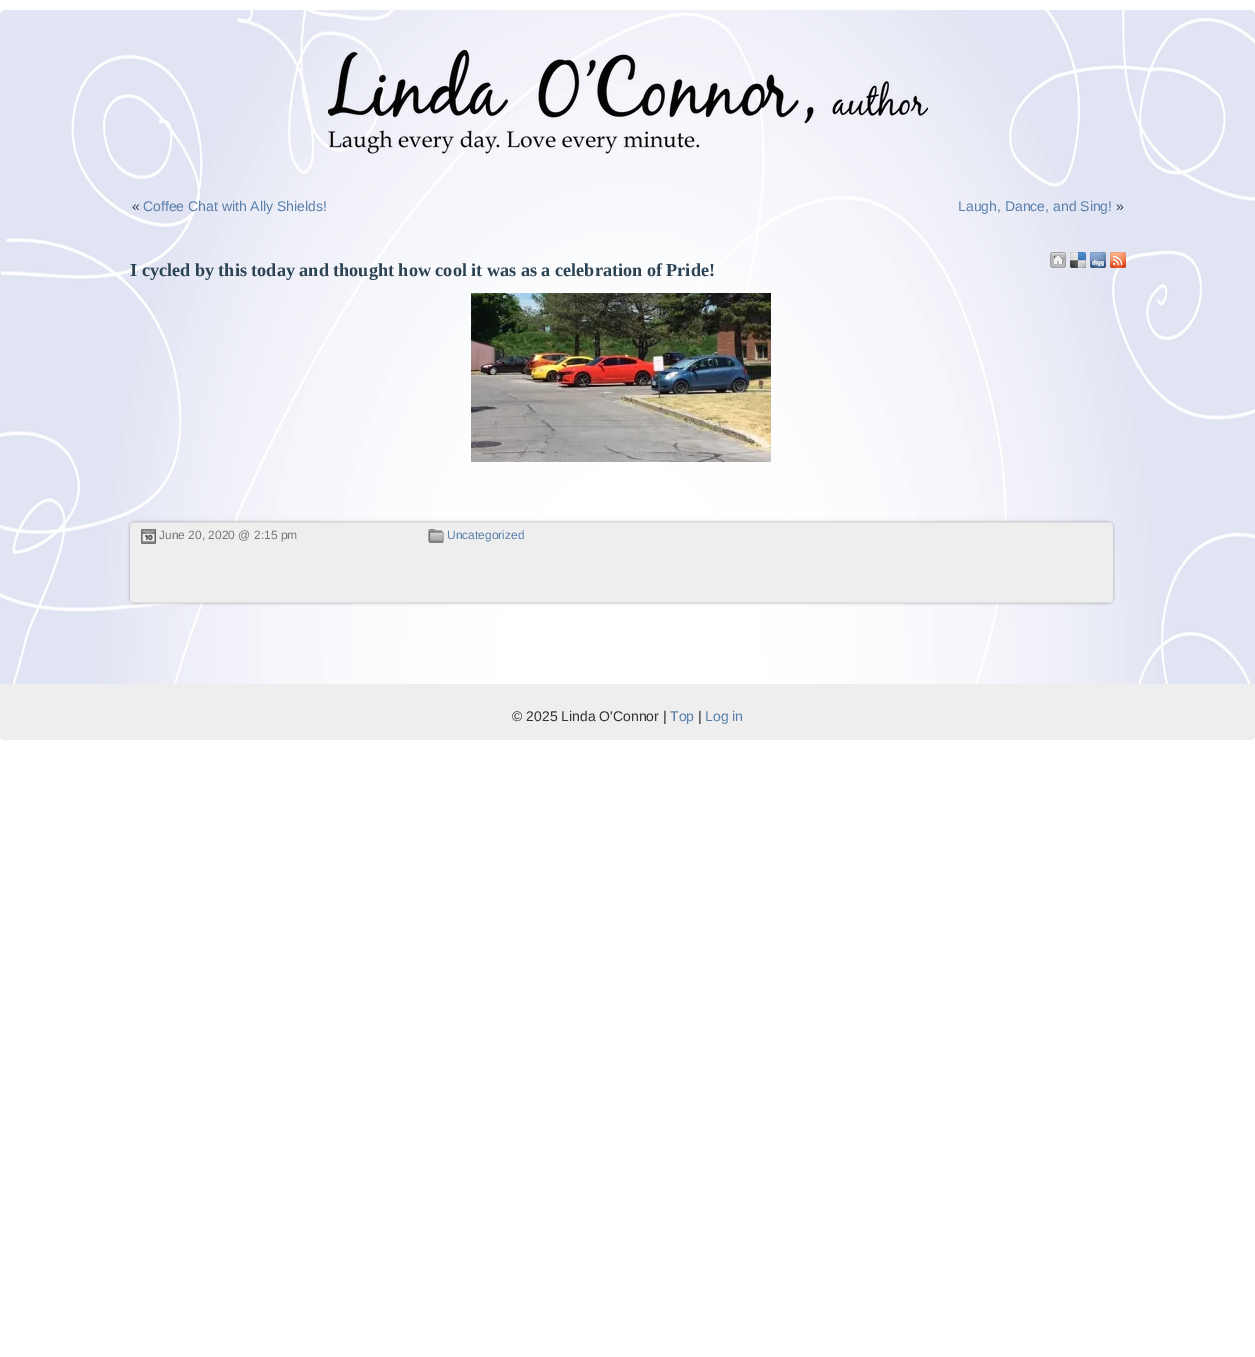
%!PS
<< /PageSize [1255 1357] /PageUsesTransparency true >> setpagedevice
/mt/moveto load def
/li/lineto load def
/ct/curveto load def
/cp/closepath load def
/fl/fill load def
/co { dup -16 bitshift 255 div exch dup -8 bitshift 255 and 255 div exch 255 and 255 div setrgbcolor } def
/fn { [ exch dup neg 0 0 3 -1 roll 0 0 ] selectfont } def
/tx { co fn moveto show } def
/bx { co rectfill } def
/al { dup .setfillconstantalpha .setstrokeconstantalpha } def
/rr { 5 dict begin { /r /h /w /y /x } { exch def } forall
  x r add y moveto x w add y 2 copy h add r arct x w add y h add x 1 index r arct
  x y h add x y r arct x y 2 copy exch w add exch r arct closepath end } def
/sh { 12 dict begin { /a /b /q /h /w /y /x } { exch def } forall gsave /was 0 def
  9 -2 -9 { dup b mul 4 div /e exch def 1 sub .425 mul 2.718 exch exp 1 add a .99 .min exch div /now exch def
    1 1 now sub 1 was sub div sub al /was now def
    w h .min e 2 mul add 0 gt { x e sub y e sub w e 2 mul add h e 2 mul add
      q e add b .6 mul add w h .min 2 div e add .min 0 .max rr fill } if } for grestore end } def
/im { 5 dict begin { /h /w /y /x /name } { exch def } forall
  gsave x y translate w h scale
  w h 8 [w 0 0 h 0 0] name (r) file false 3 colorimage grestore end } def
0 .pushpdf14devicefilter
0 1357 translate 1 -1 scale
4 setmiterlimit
0 0 1255 1357 16#FFFFFF bx
(media/1.raw) 0 10 1255 730 im
(media/2.raw) 328 50 600 104 im
(media/3.raw) 1050 252 16 16 im
(media/4.raw) 1070 252 16 16 im
(media/5.raw) 1090 252 16 16 im
(media/6.raw) 1110 252 16 16 im
(media/7.raw) 471 293 300 169 im
16#000000 co
130 522 983 81 5 1.5 .3 sh
16#EEEEEE co
130 522 983 81 5 rr fl
133 522 978 1 16#DDDDDD bx
133 602 978 1 16#DDDDDD bx
(media/8.raw) 141 529 15 15 im
(media/9.raw) 428 529 16 14 im
16#EEEEEE co
0 684 mt 1255 684 li 1255 735 li 1255 738 1253 740 1250 740 ct 5 740 li 2 740 0 738 0 735 ct cp fl
(«) 132 211 /LiberationSans-Regular 14 16#2C4353 tx
(Coffee Chat with Ally Shields!) 143 211 /LiberationSans-Regular 14 16#597EAA tx
(Laugh, Dance, and Sing!) 958 211 /LiberationSans-Regular 14 16#597EAA tx
(») 1116 211 /LiberationSans-Regular 14 16#2C4353 tx
(I cycled by this today and thought how cool it was as a celebration of Pride!) 130 276 /LiberationSerif-Bold 18.2 16#2C4353 tx
(June 20, 2020 @ 2:15 pm) 159 539 /LiberationSans-Regular 12 16#777777 tx
(Uncategorized) 447 539 /LiberationSans-Regular 12 16#597EAA tx
(© 2025 Linda O'Connor |) 512 721 /LiberationSans-Regular 14 16#333333 tx
(Top) 670 721 /LiberationSans-Regular 14 16#597EAA tx
(|) 698 721 /LiberationSans-Regular 14 16#333333 tx
(Log in) 705 721 /LiberationSans-Regular 14 16#597EAA tx
.poppdf14devicefilter showpage
